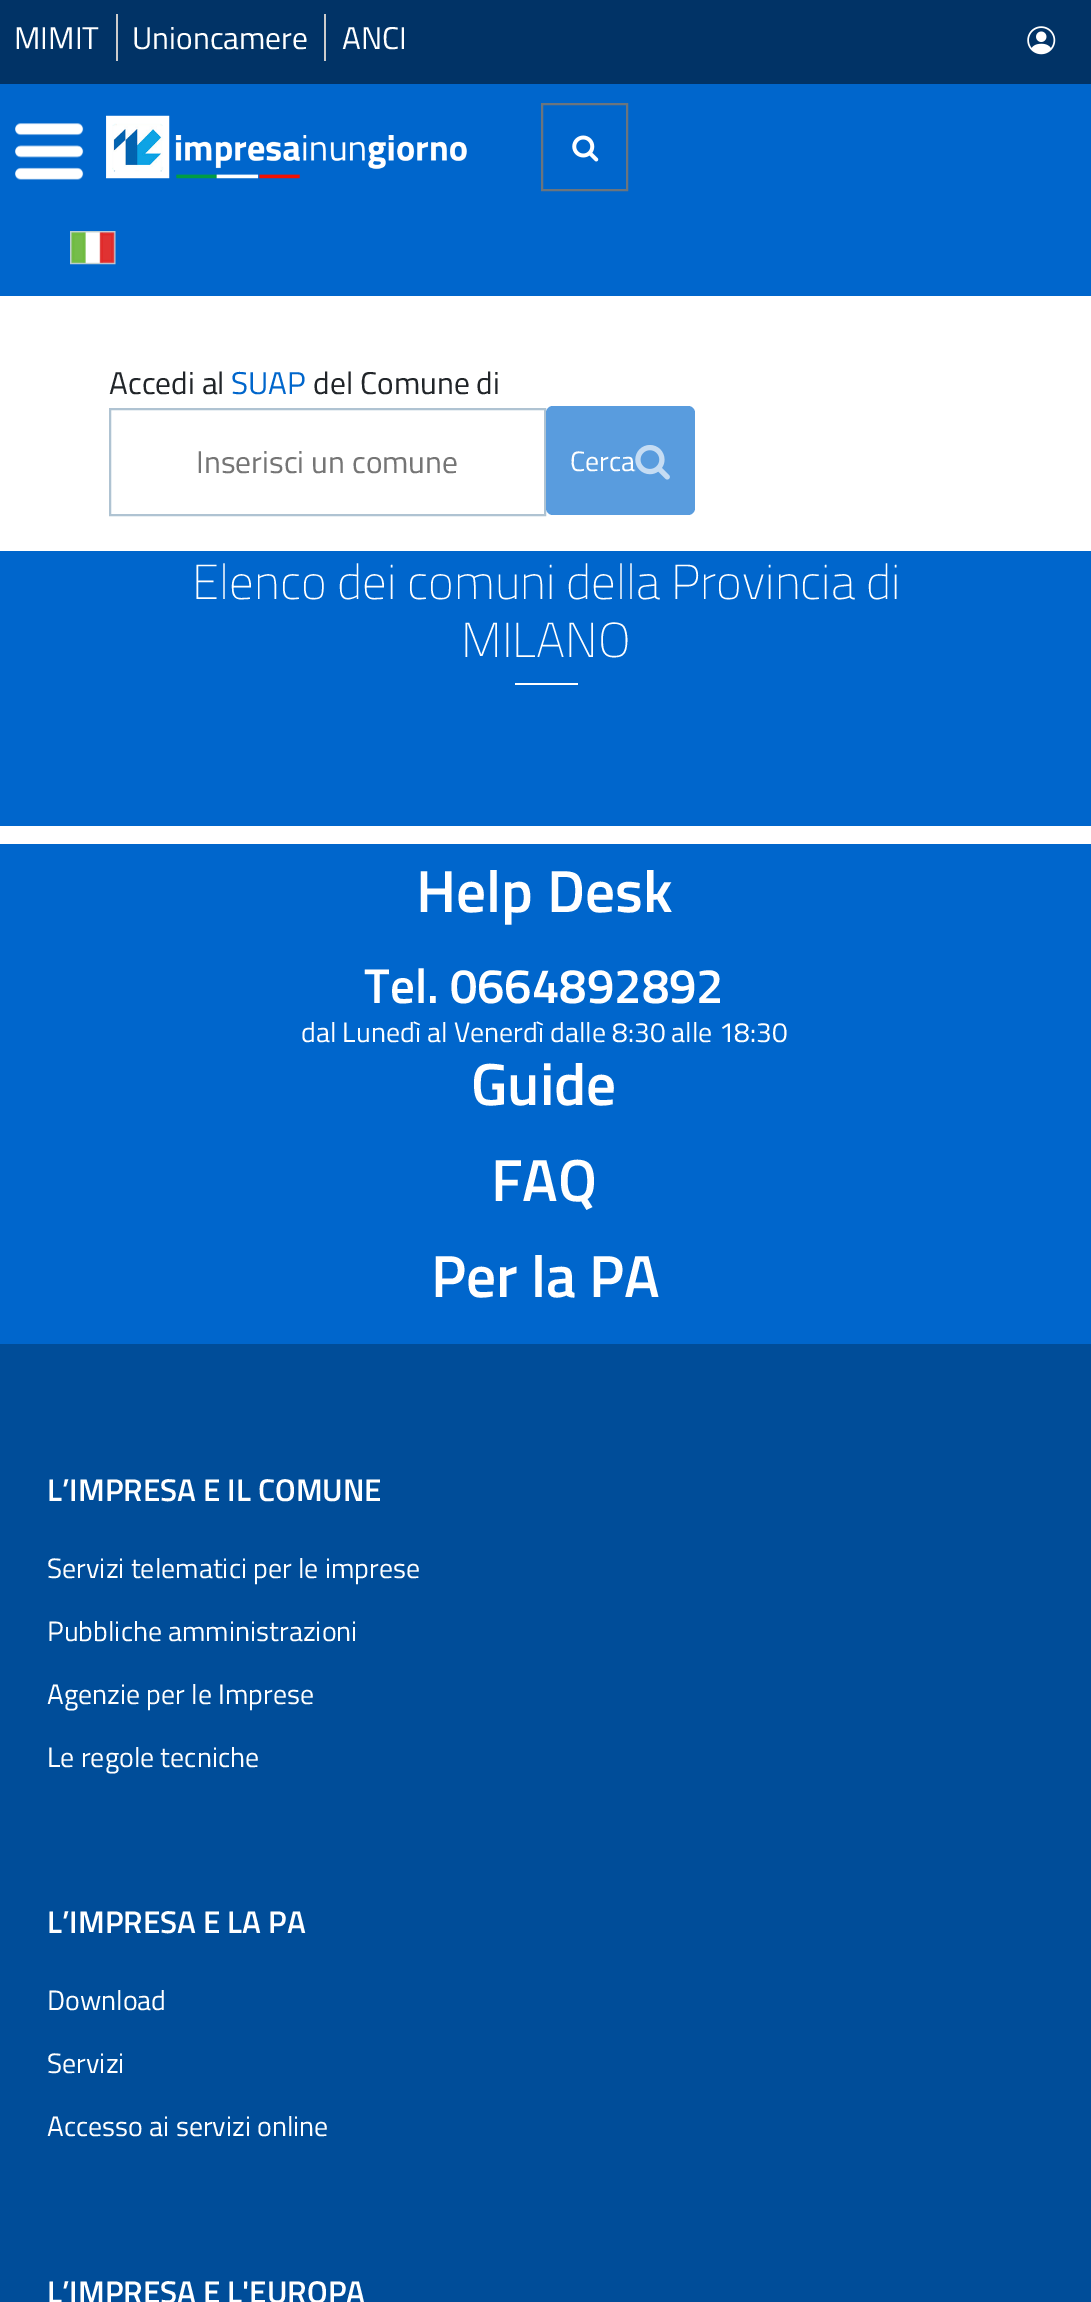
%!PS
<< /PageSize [1091 2302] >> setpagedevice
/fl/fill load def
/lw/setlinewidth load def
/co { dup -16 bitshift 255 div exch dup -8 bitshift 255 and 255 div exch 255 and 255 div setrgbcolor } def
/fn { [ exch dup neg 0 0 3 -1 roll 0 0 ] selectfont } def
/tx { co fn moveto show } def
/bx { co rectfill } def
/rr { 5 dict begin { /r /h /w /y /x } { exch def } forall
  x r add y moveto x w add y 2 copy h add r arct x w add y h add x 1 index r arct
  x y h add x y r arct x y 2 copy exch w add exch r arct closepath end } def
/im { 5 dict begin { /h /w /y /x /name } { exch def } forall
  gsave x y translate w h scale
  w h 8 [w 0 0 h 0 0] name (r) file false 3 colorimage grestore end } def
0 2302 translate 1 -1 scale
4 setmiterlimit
0 0 1091 2302 16#FFFFFF bx
0 0 1091 84 16#013366 bx
116 14 2 47 16#CCCCCC bx
324 14 2 47 16#CCCCCC bx
(media/1.raw) 1027 26 29 29 im
0 84 1091 212 16#0066CC bx
(media/2.raw) 15 123 69 57 im
(media/3.raw) 106 115 361 64 im
16#6C757D co
2 lw
542 104 85 86 rectstroke
(media/4.raw) 572 135 27 27 im
(media/5.raw) 70 231 46 34 im
16#AFC3D2 co
110 409 435 106 rectstroke
16#599CDE co
546 406 149 109 7 rr fl
0 551 1091 275 16#0066CC bx
515 683 63 2 16#FFFFFF bx
0 844 1091 500 16#0066CC bx
0 1344 1091 958 16#004D99 bx
(MIMIT) 14 49 /TitilliumWeb-Regular 31.5 16#FFFFFF tx
(Unioncamere) 132 49 /TitilliumWeb-Regular 31.5 16#FFFFFF tx
(ANCI) 342 49 /TitilliumWeb-Regular 31.5 16#FFFFFF tx
(Accedi al) 109 394 /TitilliumWeb-Regular 31.5 16#212529 tx
(SUAP) 231 394 /TitilliumWeb-Regular 31.5 16#0066CC tx
(del Comune di) 313 394 /TitilliumWeb-Regular 31.5 16#212529 tx
(Inserisci un comune) 196 473 /TitilliumWeb-Regular 31.5 16#757575 tx
(Cerca) 570 471 /TitilliumWeb-Regular 28 16#FFFFFF tx
(media/6.raw) 635 445 35 35 im
(Elenco dei comuni della Provincia di) 192 599 /TitilliumWeb-Thin 49 16#FFFFFF tx
(MILANO) 461 657 /TitilliumWeb-Thin 49 16#FFFFFF tx
(Help Desk) 416 912 /TitilliumWeb-SemiBold 59.5 16#FFFFFF tx
(Tel. 0664892892) 364 1003 /TitilliumWeb-SemiBold 49 16#FFFFFF tx
(dal Lunedì al Venerdì dalle 8:30 alle 18:30) 301 1042 /TitilliumWeb-Regular 28 16#FFFFFF tx
(Guide) 471 1105 /TitilliumWeb-SemiBold 59.5 16#FFFFFF tx
(FAQ) 491 1201 /TitilliumWeb-SemiBold 59.5 16#FFFFFF tx
(Per la PA) 431 1297 /TitilliumWeb-SemiBold 59.5 16#FFFFFF tx
(L’IMPRESA E IL COMUNE) 47 1501 /TitilliumWeb-SemiBold 31.5 16#FFFFFF tx
(Servizi telematici per le imprese) 47 1578 /TitilliumWeb-Regular 28 16#FFFFFF tx
(Pubbliche amministrazioni) 47 1641 /TitilliumWeb-Regular 28 16#FFFFFF tx
(Agenzie per le Imprese) 47 1704 /TitilliumWeb-Regular 28 16#FFFFFF tx
(Le regole tecniche) 47 1767 /TitilliumWeb-Regular 28 16#FFFFFF tx
(L’IMPRESA E LA PA) 47 1933 /TitilliumWeb-SemiBold 31.5 16#FFFFFF tx
(Download) 47 2010 /TitilliumWeb-Regular 28 16#FFFFFF tx
(Servizi) 47 2073 /TitilliumWeb-Regular 28 16#FFFFFF tx
(Accesso ai servizi online) 47 2136 /TitilliumWeb-Regular 28 16#FFFFFF tx
(L’IMPRESA E L'EUROPA) 47 2303 /TitilliumWeb-SemiBold 31.5 16#FFFFFF tx
showpage
